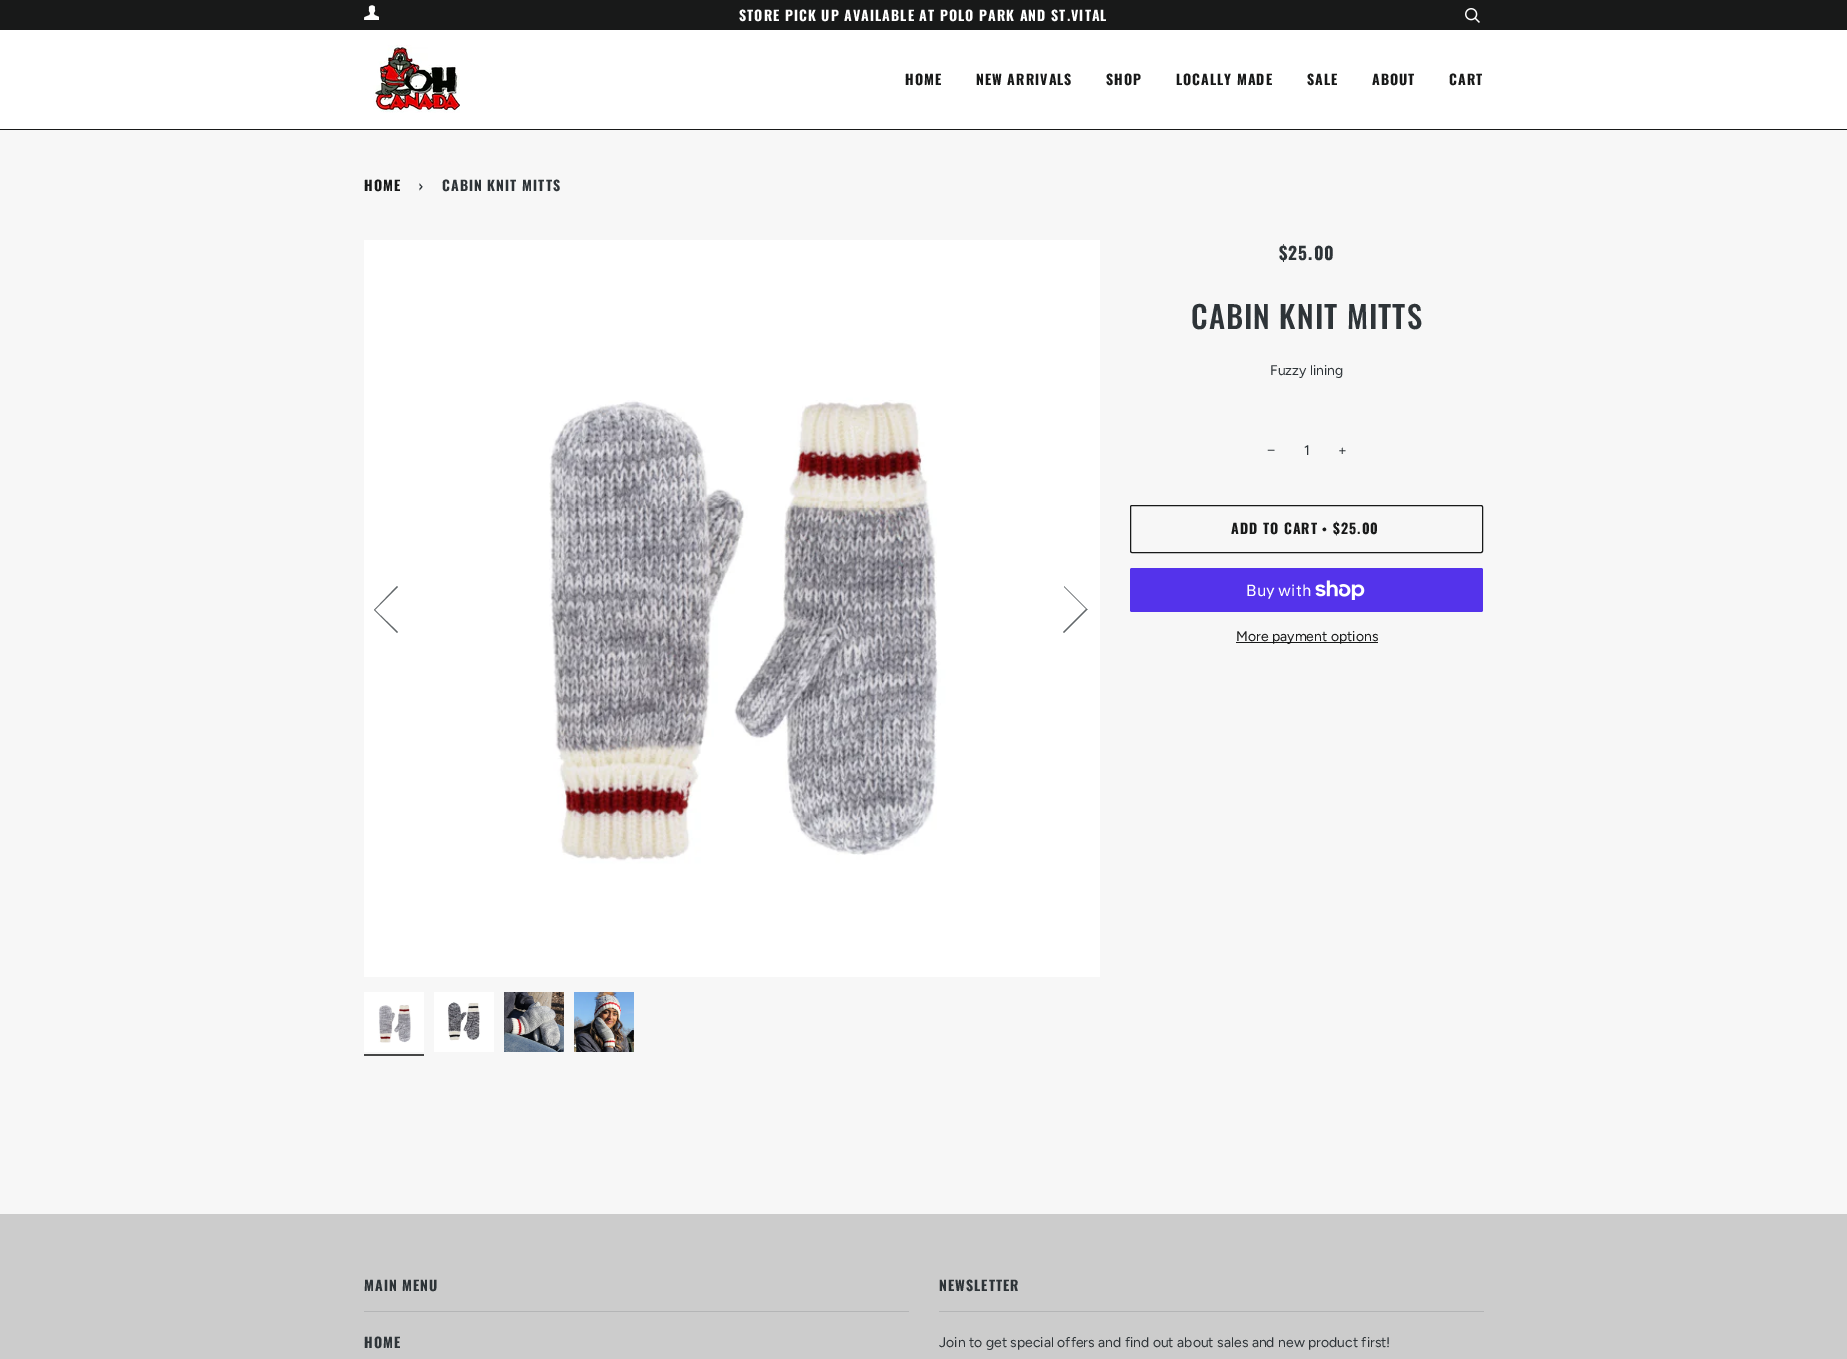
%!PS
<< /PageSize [1847 1359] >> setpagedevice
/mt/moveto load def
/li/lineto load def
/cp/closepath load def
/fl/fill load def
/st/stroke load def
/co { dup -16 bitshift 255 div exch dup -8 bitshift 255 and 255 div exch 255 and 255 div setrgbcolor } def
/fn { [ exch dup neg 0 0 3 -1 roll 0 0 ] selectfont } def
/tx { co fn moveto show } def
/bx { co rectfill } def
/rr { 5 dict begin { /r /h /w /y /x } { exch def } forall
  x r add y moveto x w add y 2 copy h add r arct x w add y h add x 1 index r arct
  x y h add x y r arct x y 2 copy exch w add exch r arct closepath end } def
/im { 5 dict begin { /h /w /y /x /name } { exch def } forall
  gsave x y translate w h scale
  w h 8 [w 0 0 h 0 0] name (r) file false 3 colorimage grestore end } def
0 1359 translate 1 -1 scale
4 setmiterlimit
0 0 1847 1359 16#FFFFFF bx
0 0 1847 30 16#181919 bx
(media/1.raw) 364 5 15 15 im
(media/2.raw) 1465 8 15 15 im
0 129 1847 1 16#181919 bx
(media/3.raw) 373 45 87 68 im
0 130 1847 1084 16#F7F7F7 bx
(media/4.raw) 364 240 736 737 im
16#62676A co
374 610 mt 397 633 li 398 632 li 375 610 li 398 587 li 397 586 li cp fl
1087 609 mt 1064 586 li 1064 587 li 1086 609 li 1063 632 li 1064 633 li 1088 609 li cp fl
(media/5.raw) 364 992 60 60 im
364 1054 60 2 16#464747 bx
(media/6.raw) 434 992 60 60 im
(media/7.raw) 504 992 60 60 im
(media/8.raw) 574 992 60 60 im
16#181919 co
1130.5 505.5 352 47 1.5 rr st
16#5433EB co
1130 568 353 44 2 rr fl
(media/9.raw) 1315 580 50 20 im
1236 642 142 1 16#181919 bx
0 1214 1847 145 16#CCCCCC bx
364 1311 545 1 16#B4B5B6 bx
939 1311 545 1 16#B4B5B6 bx
/Oswald-Bold 14 fn
16#FFFFFF co
739 21 mt 1 0 (STORE PICK UP AVAILABLE AT POLO PARK AND ST.VITAL) ashow
16#181919 co
905 85 mt 1 0 (HOME) ashow
976 85 mt 1 0 (NEW ARRIVALS) ashow
1106 85 mt 1 0 (SHOP) ashow
1176 85 mt 1 0 (LOCALLY MADE) ashow
1307 85 mt 1 0 (SALE) ashow
1372 85 mt 1 0 (ABOUT) ashow
1449 85 mt 1 0 (CART) ashow
364 191 mt 1 0 (HOME) ashow
16#2E3438 co
419 191 mt 1 0 (›) ashow
442 191 mt 1 0 (CABIN KNIT MITTS) ashow
/Oswald-Bold 17.5 fn
1279 260 mt 1 0 ($25.00) ashow
/Oswald-Medium 30.75 fn
1191 329 mt 1 0 (CABIN KNIT MITTS) ashow
(Fuzzy lining) 1270 375 /Figtree-Regular 14 16#2E3438 tx
(−) 1267 455 /LiberationSans-Regular 14 16#2E3438 tx
(1) 1304 455 /Figtree-Regular 14 16#2E3438 tx
(+) 1338 455 /Figtree-Regular 14 16#2E3438 tx
/Oswald-Bold 14 fn
16#181919 co
1231 534 mt 1 0 (ADD TO CART) ashow
/LiberationSerif-Bold 14 fn
1322 534 mt 1 0 (•) ashow
/Oswald-Bold 14 fn
1333 534 mt 1 0 ($25.00) ashow
(Buy with) 1246 596 /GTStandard-Regular 16 16#FFFFFF tx
(More payment options) 1236 641 /Figtree-Regular 14 16#181919 tx
/Oswald-Bold 14 fn
16#2E3438 co
364 1291 mt 1 0 (MAIN MENU) ashow
364 1348 mt 1 0 (HOME) ashow
939 1291 mt 1 0 (NEWSLETTER) ashow
(Join to get special offers and find out about sales and new product first!) 939 1347 /Figtree-Regular 14 16#2E3438 tx
showpage
